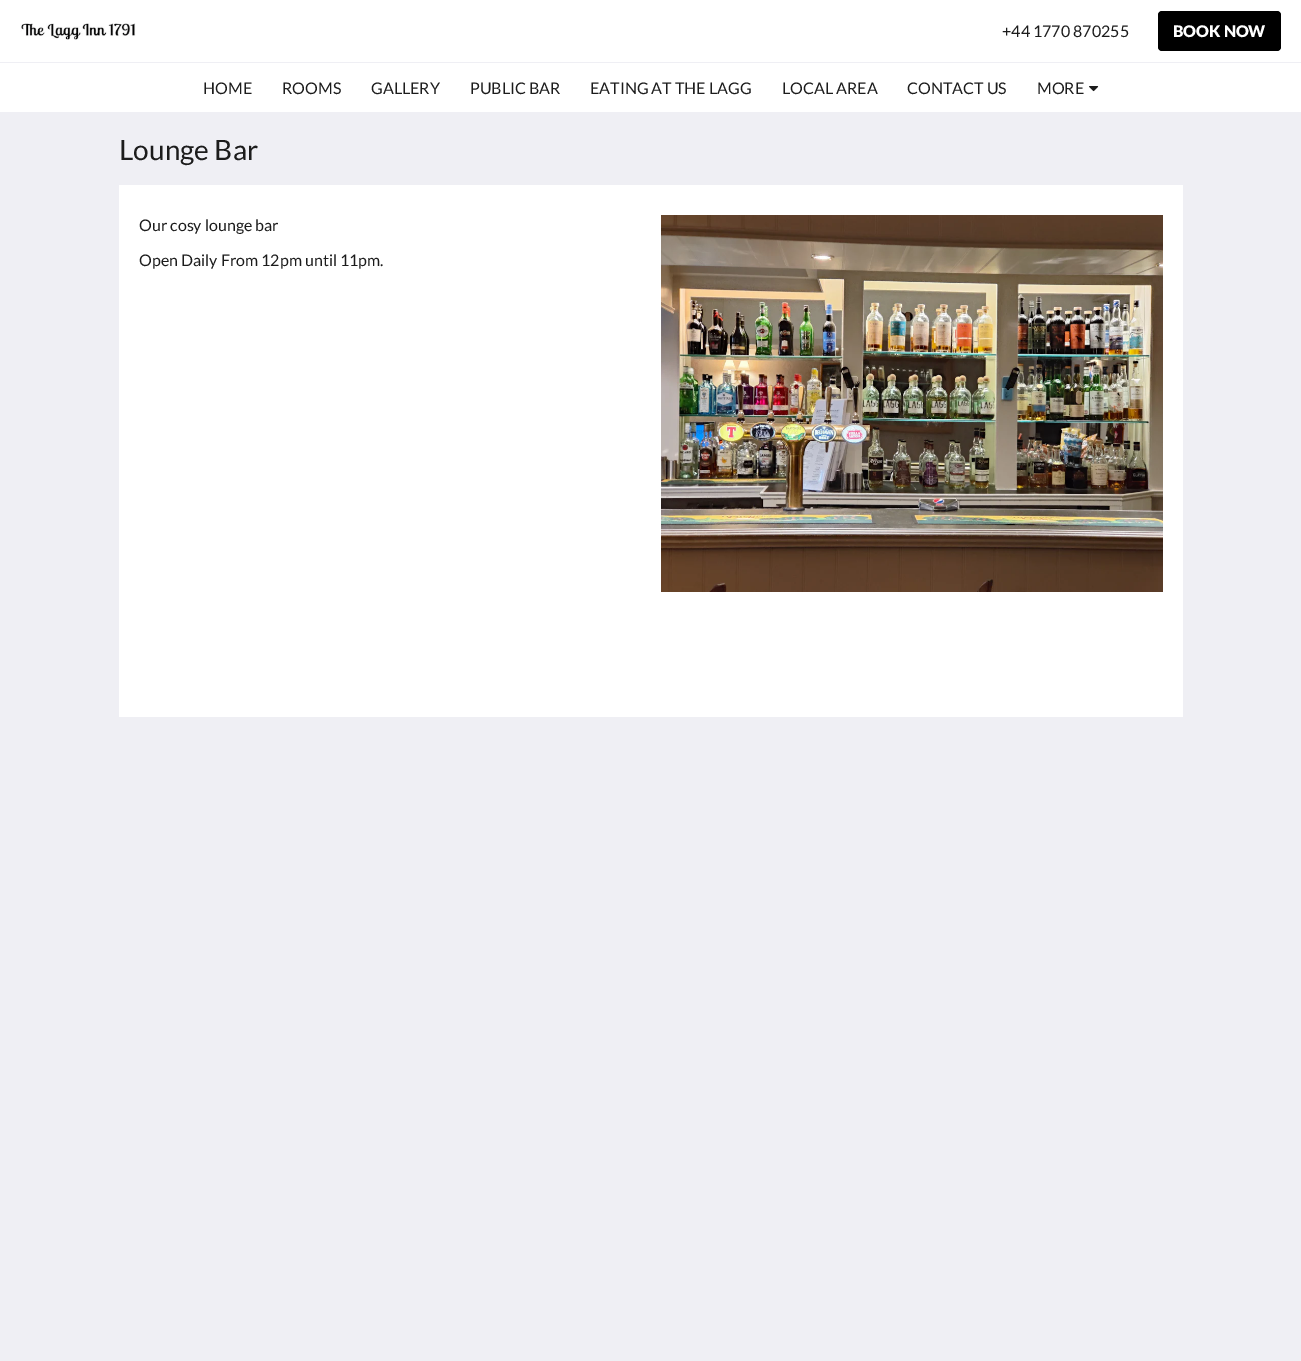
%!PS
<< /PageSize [1301 1361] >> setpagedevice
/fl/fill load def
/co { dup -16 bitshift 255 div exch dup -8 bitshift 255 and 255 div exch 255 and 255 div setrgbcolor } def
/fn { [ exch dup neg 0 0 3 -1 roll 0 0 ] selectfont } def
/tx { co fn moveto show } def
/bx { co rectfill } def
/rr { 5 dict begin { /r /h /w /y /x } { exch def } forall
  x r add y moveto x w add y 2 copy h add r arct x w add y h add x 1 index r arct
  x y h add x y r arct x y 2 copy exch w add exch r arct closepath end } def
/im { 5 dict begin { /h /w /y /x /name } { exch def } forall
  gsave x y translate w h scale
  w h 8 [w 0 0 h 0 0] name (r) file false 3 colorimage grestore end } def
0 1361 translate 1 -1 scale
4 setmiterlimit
0 0 1301 1361 16#EFEFF4 bx
0 0 1301 62 16#FFFFFF bx
(media/1.raw) 20 23 116 17 im
16#000000 co
1158 11 123 40 4 rr fl
0 63 1301 49 16#FFFFFF bx
(media/2.raw) 1089 86 10 6 im
119 185 1064 532 16#FFFFFF bx
(media/3.raw) 661 215 502 377 im
(+44 1770 870255) 1002 37 /Lato-Regular 16 16#1C1C1C tx
(BOOK NOW) 1173 37 /Lato-Black 16 16#FFFFFF tx
(HOME) 203 94 /Lato-Regular 16 16#1C1C1C tx
(ROOMS) 282 94 /Lato-Regular 16 16#1C1C1C tx
(GALLERY) 371 94 /Lato-Regular 16 16#1C1C1C tx
(PUBLIC BAR) 470 94 /Lato-Regular 16 16#1C1C1C tx
(EATING AT THE LAGG) 590 94 /Lato-Regular 16 16#1C1C1C tx
(LOCAL AREA) 782 94 /Lato-Regular 16 16#1C1C1C tx
(CONTACT US) 907 94 /Lato-Regular 16 16#1C1C1C tx
(MORE) 1037 94 /Lato-Regular 16 16#1C1C1C tx
(Lounge Bar) 119 160 /Lato-Regular 28 16#1C1C1C tx
(Our cosy lounge bar) 139 231 /Lato-Regular 16 16#1C1C1C tx
(Open Daily From 12pm until 11pm.) 139 266 /Lato-Regular 16 16#1C1C1C tx
showpage
